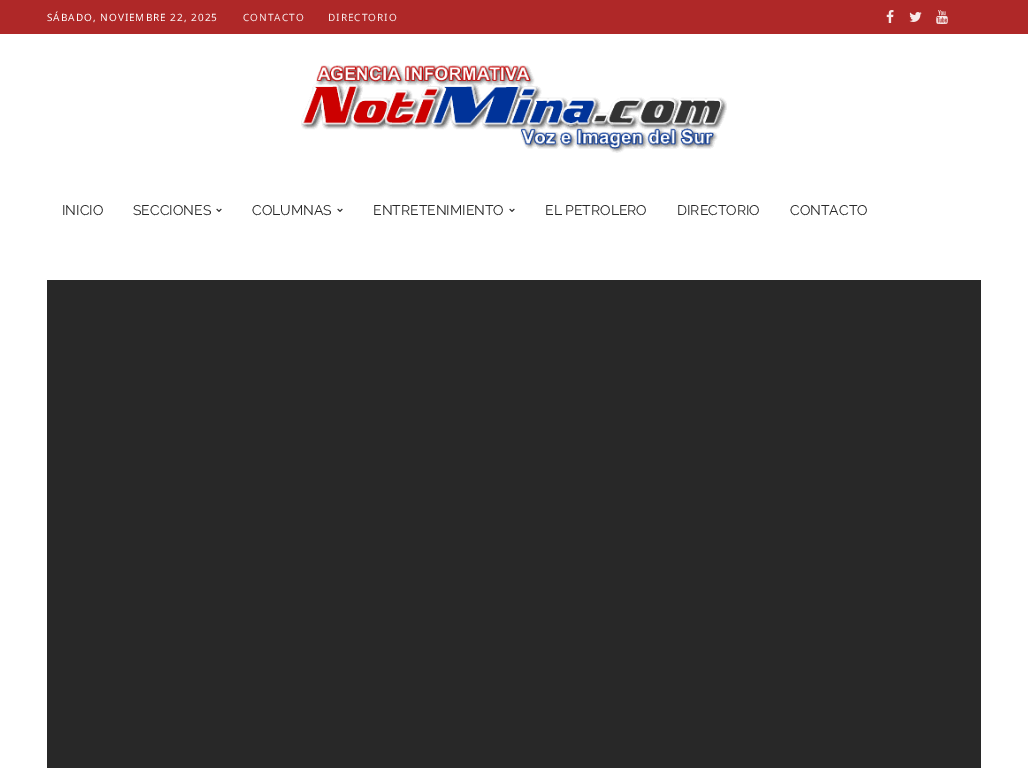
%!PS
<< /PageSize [1028 768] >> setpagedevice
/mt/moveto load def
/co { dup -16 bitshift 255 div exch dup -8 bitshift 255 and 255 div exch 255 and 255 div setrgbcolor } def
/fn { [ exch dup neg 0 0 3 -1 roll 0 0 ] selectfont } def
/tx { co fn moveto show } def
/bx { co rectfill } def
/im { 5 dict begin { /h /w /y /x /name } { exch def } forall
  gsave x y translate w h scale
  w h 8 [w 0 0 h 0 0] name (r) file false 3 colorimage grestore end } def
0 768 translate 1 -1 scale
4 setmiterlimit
0 0 1028 768 16#FFFFFF bx
0 0 1028 34 16#AF2828 bx
(media/1.raw) 886 10 8 13 im
(media/2.raw) 909 12 13 10 im
(media/3.raw) 936 10 12 14 im
(media/4.raw) 301 65 426 88 im
(media/5.raw) 216 208 6 4 im
(media/5.raw) 337 208 6 4 im
(media/5.raw) 509 208 6 4 im
47 280 934 488 16#282828 bx
/NotoSans-Regular 10 fn
16#FFFFFF co
47 21 mt 1 0 (SÁBADO, NOVIEMBRE 22, 2025) ashow
16#F7EAEA co
243 21 mt 1 0 (CONTACTO) ashow
328 21 mt 1 0 (DIRECTORIO) ashow
(INICIO) 62 215 /Raleway-Regular 14 16#282828 tx
(SECCIONES) 133 215 /Raleway-Regular 14 16#282828 tx
(COLUMNAS) 252 215 /Raleway-Regular 14 16#282828 tx
(ENTRETENIMIENTO) 373 215 /Raleway-Regular 14 16#282828 tx
(EL PETROLERO) 545 215 /Raleway-Regular 14 16#282828 tx
(DIRECTORIO) 677 215 /Raleway-Regular 14 16#282828 tx
(CONTACTO) 790 215 /Raleway-Regular 14 16#282828 tx
showpage
